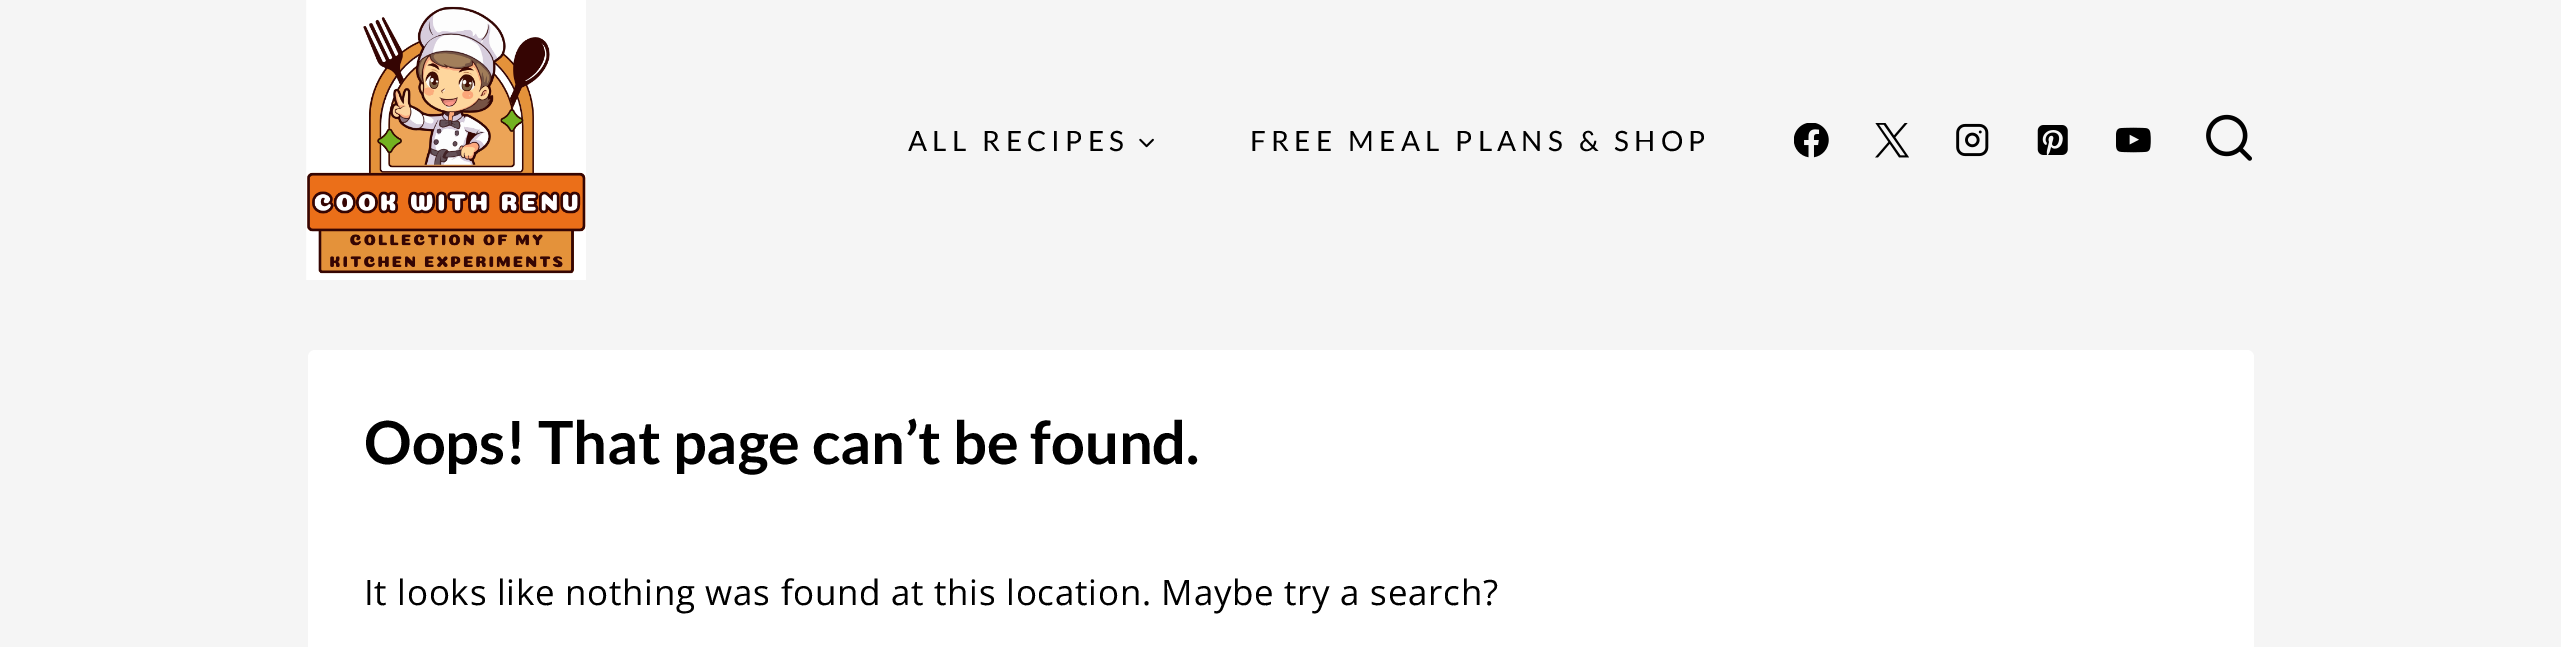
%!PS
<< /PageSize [2561 647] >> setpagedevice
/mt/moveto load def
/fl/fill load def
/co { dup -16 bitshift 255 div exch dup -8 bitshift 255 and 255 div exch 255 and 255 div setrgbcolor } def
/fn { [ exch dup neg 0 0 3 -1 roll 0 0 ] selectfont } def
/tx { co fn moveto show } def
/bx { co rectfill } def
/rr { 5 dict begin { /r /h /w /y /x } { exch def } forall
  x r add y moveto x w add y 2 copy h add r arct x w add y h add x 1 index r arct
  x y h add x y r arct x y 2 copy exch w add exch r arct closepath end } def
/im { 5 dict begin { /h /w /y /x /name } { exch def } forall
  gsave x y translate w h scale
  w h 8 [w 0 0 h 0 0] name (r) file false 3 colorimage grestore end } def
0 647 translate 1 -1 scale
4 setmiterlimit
0 0 2561 647 16#F5F5F5 bx
(media/1.raw) 306 0 280 280 im
(media/2.raw) 1139 138 15 10 im
(media/3.raw) 1794 123 35 35 im
(media/4.raw) 1875 123 34 35 im
(media/5.raw) 1956 123 33 34 im
(media/6.raw) 2037 125 31 30 im
(media/7.raw) 2116 127 35 26 im
(media/8.raw) 2206 114 46 47 im
16#FFFFFF co
308 350 1946 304 7 rr fl
/Lato-Regular 28 fn
16#000000 co
908 151 mt 5.25 0 (ALL RECIPES) ashow
1250 151 mt 5.25 0 (FREE MEAL PLANS & SHOP) ashow
(Oops! That page can’t be found.) 364 464 /Lato-Bold 59.5 16#000000 tx
/OpenSans-Regular 35 fn
364 605 mt .7 0 (It looks like nothing was found at this location. Maybe try a search?) ashow
showpage
